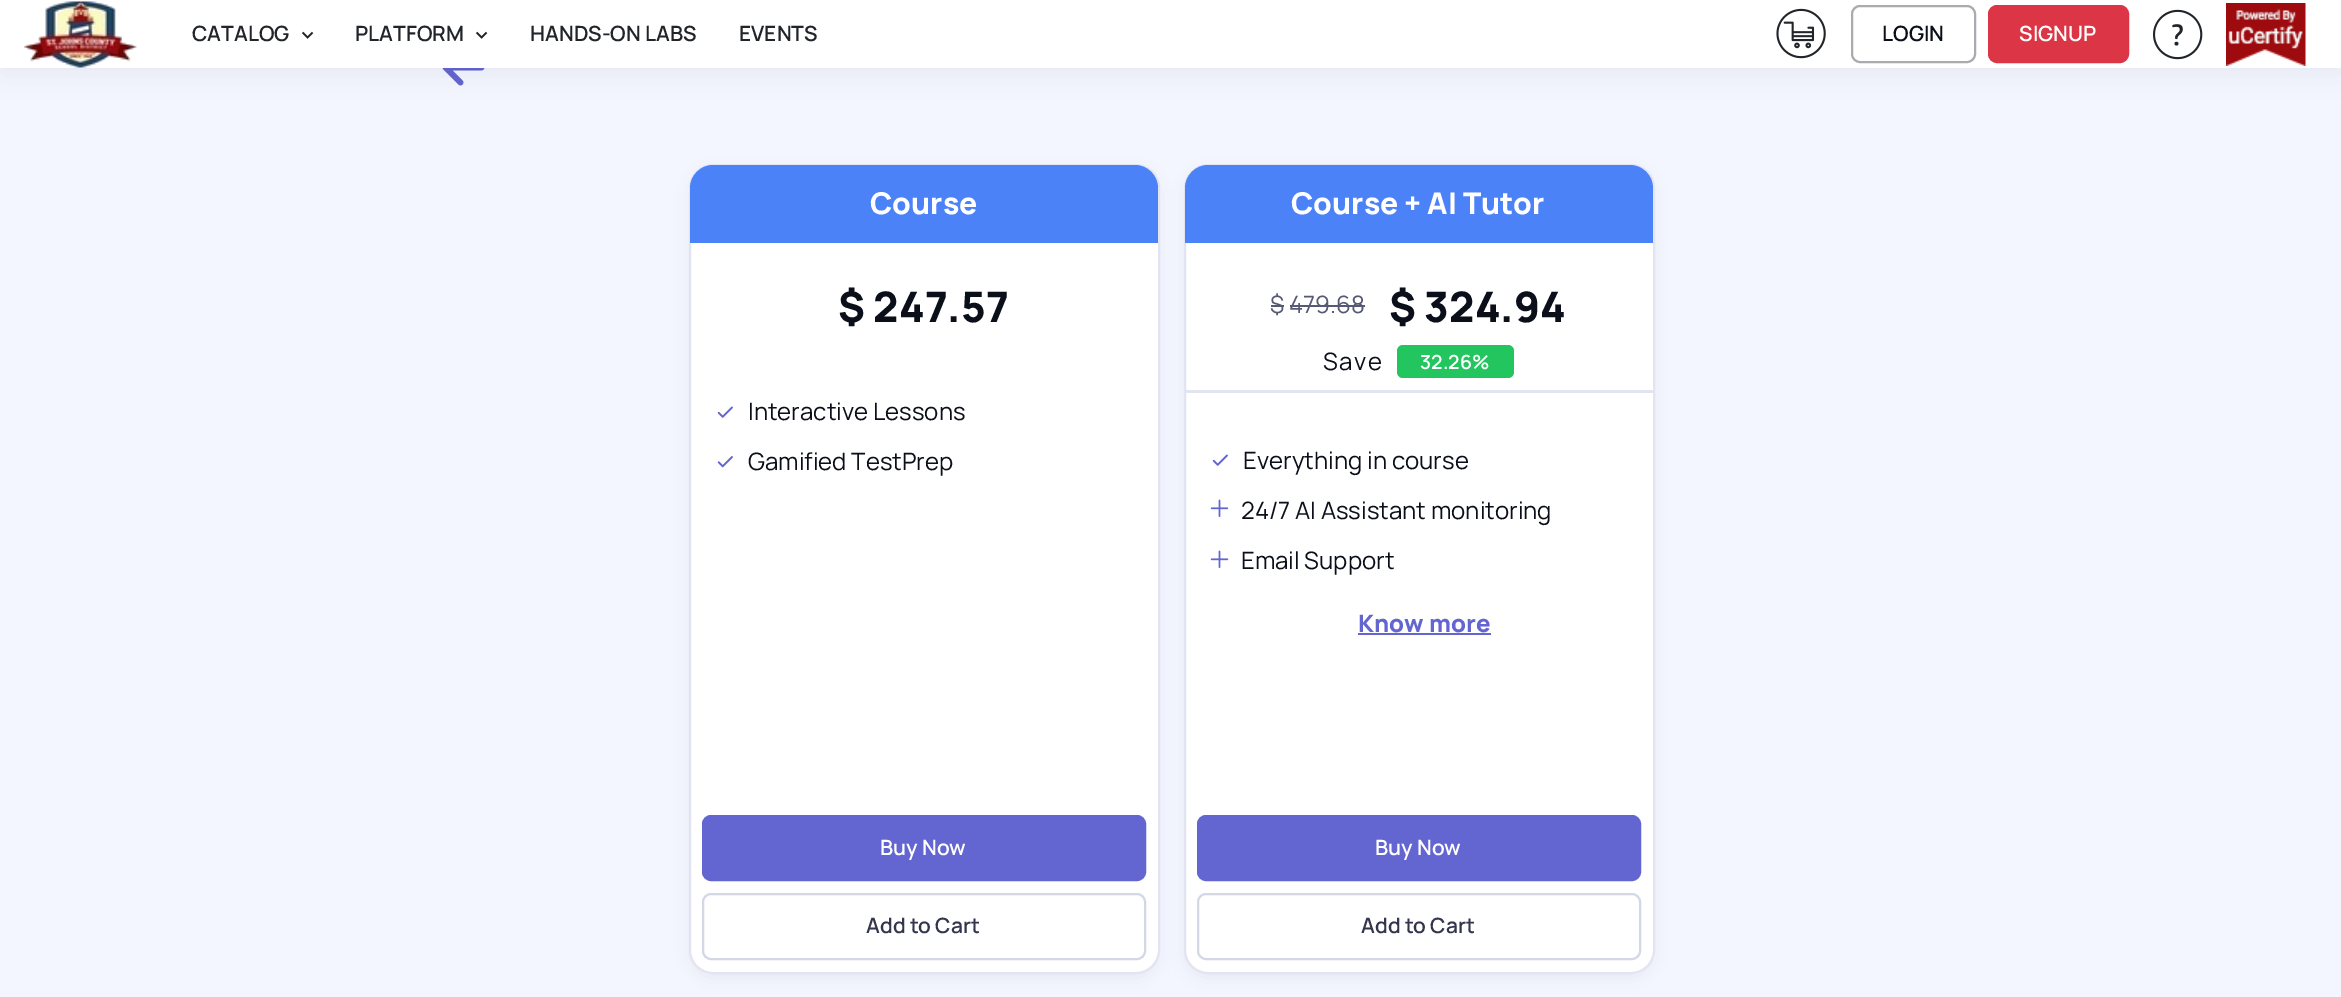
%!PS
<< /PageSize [2341 997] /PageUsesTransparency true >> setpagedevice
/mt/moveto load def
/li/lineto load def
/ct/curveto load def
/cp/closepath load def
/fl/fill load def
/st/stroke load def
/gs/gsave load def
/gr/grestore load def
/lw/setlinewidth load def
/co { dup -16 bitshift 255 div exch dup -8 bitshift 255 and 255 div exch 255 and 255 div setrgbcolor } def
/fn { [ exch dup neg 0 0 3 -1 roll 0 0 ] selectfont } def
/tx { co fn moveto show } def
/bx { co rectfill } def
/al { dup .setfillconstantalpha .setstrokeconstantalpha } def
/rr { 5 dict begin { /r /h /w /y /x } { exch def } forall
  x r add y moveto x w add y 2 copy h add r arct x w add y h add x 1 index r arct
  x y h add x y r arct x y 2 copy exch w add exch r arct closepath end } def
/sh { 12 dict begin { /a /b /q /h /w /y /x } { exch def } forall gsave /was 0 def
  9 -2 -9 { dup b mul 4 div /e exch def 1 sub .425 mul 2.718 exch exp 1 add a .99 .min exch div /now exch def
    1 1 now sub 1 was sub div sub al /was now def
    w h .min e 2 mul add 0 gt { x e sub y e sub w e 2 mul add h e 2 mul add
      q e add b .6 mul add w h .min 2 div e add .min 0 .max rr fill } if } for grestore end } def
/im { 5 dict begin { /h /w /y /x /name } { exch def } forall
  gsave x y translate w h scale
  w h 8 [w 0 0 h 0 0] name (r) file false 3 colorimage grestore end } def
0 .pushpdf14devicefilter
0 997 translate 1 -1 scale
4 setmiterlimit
0 0 2341 997 16#F3F6FF bx
(media/6.raw) 442 68 43 18 im
16#0B0F19 co
0 6 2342 68 0 15 .05 sh
0 0 2341 68 16#FFFFFF bx
(media/1.raw) 24 1 113 67 im
(media/2.raw) 301 31 13 8 im
(media/2.raw) 475 31 13 8 im
(media/3.raw) 1776 8 50 51 im
16#AAABAF co
2 lw
1852 6 123 56 8 rr st
16#DC3545 co
1989 6 139 56 8 rr gs fl gr
st
(media/4.raw) 2153 9 50 51 im
(media/5.raw) 2226 3 80 63 im
16#0B0F19 co
690 171 468 807 23 9 .06 sh
16#FFFFFF co
690 165 469 808 23 rr gs fl gr
16#E2E5F1 co
st
16#4C82F7 co
713 165 mt 1135 165 li 1147.5 165 1158 175.5 1158 188 ct 1158 243 li 690 243 li 690 188 li 690 175.5 700.5 165 713 165 ct cp fl
(media/7.raw) 717 406 16 12 im
(media/8.raw) 717 456 16 12 im
16#6365D0 co
703 816 442 64 8 rr gs fl gr
st
16#D4D7E5 co
703 894 442 65 8 rr st
16#0B0F19 co
1185 171 468 807 23 9 .06 sh
16#FFFFFF co
1185 165 469 808 23 rr gs fl gr
16#E2E5F1 co
st
16#4C82F7 co
1208 165 mt 1630 165 li 1642.5 165 1653 175.5 1653 188 ct 1653 243 li 1185 243 li 1185 188 li 1185 175.5 1195.5 165 1208 165 ct cp fl
1271 305 13 2 16#565973 bx
1290 305 75 2 16#565973 bx
1185 390 468 3 16#E2E5F1 bx
16#22C55E co
1397 345 117 33 6 rr fl
(media/7.raw) 1212 454 16 12 im
(media/9.raw) 1210 499 19 18 im
(media/9.raw) 1210 550 19 18 im
1358 633 133 2 16#6365D0 bx
1198 816 442 64 8 rr gs fl gr
st
16#D4D7E5 co
1198 894 442 65 8 rr st
(CATALOG) 192 41 /Manrope-SemiBold 21 16#212529 tx
(PLATFORM) 355 41 /Manrope-SemiBold 21 16#212529 tx
(HANDS-ON LABS) 530 41 /Manrope-SemiBold 21 16#212529 tx
(EVENTS) 739 41 /Manrope-SemiBold 21 16#212529 tx
(LOGIN) 1882 41 /Manrope-SemiBold 21 16#0B0F19 tx
(SIGNUP) 2019 41 /Manrope-SemiBold 21 16#FFFFFF tx
(Course) 870 214 /Manrope-ExtraBold 30 16#FFFFFF tx
($ 247.57) 838 322 /Manrope-ExtraBold 42 16#0B0F19 tx
(Interactive Lessons) 748 420 /Manrope-Regular 24 16#0B0F19 tx
(Gamified TestPrep) 748 470 /Manrope-Regular 24 16#0B0F19 tx
(Buy Now) 880 855 /Manrope-SemiBold 21 16#FFFFFF tx
(Add to Cart) 866 933 /Manrope-SemiBold 21 16#33354D tx
(Course + AI Tutor) 1291 214 /Manrope-ExtraBold 30 16#FFFFFF tx
($ 479.68) 1270 313 /Manrope-Regular 24 16#565973 tx
($ 324.94) 1389 322 /Manrope-ExtraBold 42 16#0B0F19 tx
/Manrope-Regular 24 fn
1323 370 mt 1.5 0 (Save) ashow
(32.26%) 1420 369 /Manrope-SemiBold 19.5 16#FFFFFF tx
(Everything in course) 1243 469 /Manrope-Regular 24 16#0B0F19 tx
(24/7 AI Assistant monitoring) 1241 519 /Manrope-Regular 24 16#0B0F19 tx
(Email Support) 1241 569 /Manrope-Regular 24 16#0B0F19 tx
(Know more) 1358 632 /Manrope-ExtraBold 24 16#6365D0 tx
(Buy Now) 1375 855 /Manrope-SemiBold 21 16#FFFFFF tx
(Add to Cart) 1361 933 /Manrope-SemiBold 21 16#33354D tx
.poppdf14devicefilter showpage
